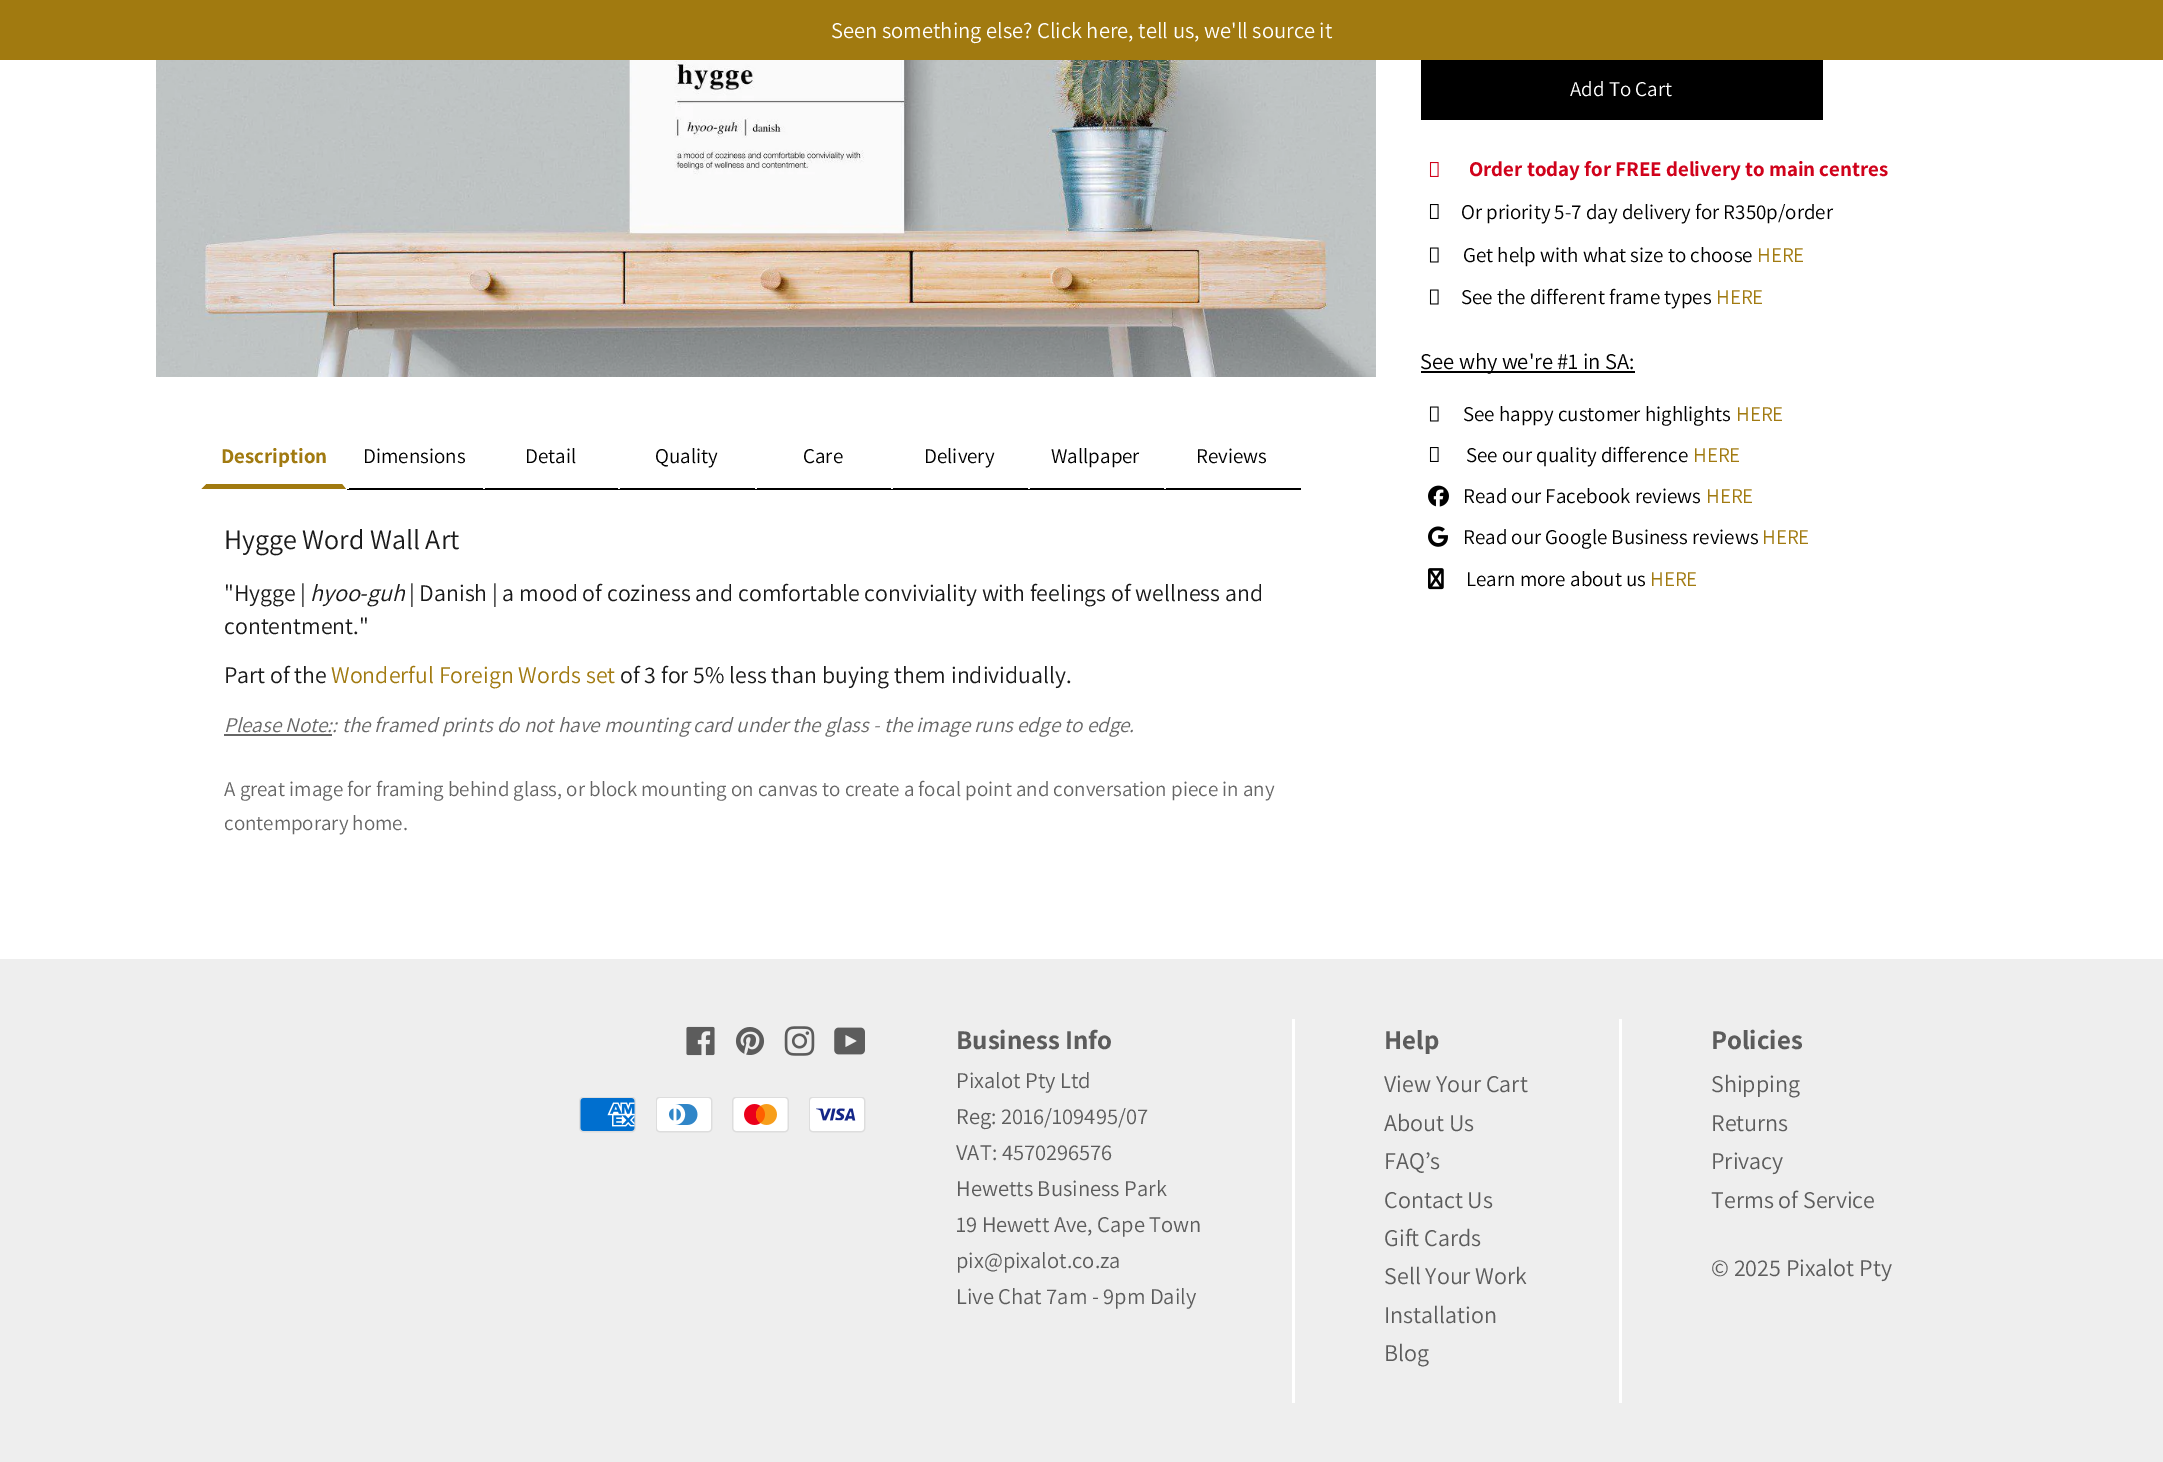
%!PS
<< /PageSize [2163 1462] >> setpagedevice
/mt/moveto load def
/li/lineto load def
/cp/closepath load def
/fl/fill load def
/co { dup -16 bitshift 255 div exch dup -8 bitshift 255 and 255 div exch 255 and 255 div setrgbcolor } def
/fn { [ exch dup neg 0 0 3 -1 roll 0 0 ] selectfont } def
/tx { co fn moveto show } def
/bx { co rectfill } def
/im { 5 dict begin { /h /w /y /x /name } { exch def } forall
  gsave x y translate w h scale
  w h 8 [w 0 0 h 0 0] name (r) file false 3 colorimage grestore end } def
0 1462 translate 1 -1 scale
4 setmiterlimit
0 0 2163 1462 16#FFFFFF bx
0 0 2163 60 16#A17A10 bx
1421 60 402 60 16#000000 bx
(media/1.raw) 1429 162 10 15 im
(media/2.raw) 1429 204 10 15 im
(media/3.raw) 1429 247 10 16 im
(media/3.raw) 1429 289 10 16 im
1421 371 214 2 16#000000 bx
(media/3.raw) 1429 406 10 16 im
(media/2.raw) 1429 447 10 15 im
(media/4.raw) 1428 485 21 22 im
(media/5.raw) 1428 526 20 21 im
(media/6.raw) 1428 568 16 22 im
(media/7.raw) 156 60 1220 317 im
16#A17A10 co
346 489 mt 201 489 li 206 484 li 342 484 li cp fl
16#FFFFFF co
201 489 mt 201 423 li 206 428 li 206 484 li cp fl
347 488 954 2 16#000000 bx
347 488 2 1 16#FFFFFF bx
483 488 2 1 16#FFFFFF bx
618 488 2 1 16#FFFFFF bx
755 488 2 1 16#FFFFFF bx
891 488 2 1 16#FFFFFF bx
1028 488 2 1 16#FFFFFF bx
1164 488 2 1 16#FFFFFF bx
224 734 108 2 16#666666 bx
0 959 2163 503 16#EEEEEE bx
(media/8.raw) 686 1026 29 30 im
(media/9.raw) 735 1027 30 28 im
(media/10.raw) 784 1026 31 30 im
(media/11.raw) 834 1027 31 28 im
(media/12.raw) 579 1097 57 36 im
(media/13.raw) 656 1097 57 36 im
(media/14.raw) 732 1097 57 36 im
(media/15.raw) 809 1097 57 36 im
1619 1019 3 384 16#FFFFFF bx
1292 1019 3 384 16#FFFFFF bx
(Seen something else? Click here, tell us, we'll source it) 831 38 /Assistant-Regular 22.5 16#FFFFFF tx
(Add To Cart) 1570 96 /Assistant-Regular 21 16#FFFFFF tx
(Order today for FREE delivery to main centres) 1469 176 /Assistant-Bold 21 16#D0021B tx
(Or priority 5-7 day delivery for R350p/order) 1461 219 /Assistant-Regular 21 16#000000 tx
(Get help with what size to choose) 1463 262 /Assistant-Regular 21 16#000000 tx
(HERE) 1757 262 /Assistant-Regular 21 16#A17A10 tx
(See the different frame types) 1461 304 /Assistant-Regular 21 16#000000 tx
(HERE) 1716 304 /Assistant-Regular 21 16#A17A10 tx
(See why we're #1 in SA:) 1420 369 /Assistant-Regular 22.5 16#000000 tx
(See happy customer highlights) 1463 421 /Assistant-Regular 21 16#000000 tx
(HERE) 1736 421 /Assistant-Regular 21 16#A17A10 tx
(See our quality difference) 1466 462 /Assistant-Regular 21 16#000000 tx
(HERE) 1693 462 /Assistant-Regular 21 16#A17A10 tx
(Read our Facebook reviews) 1463 503 /Assistant-Regular 21 16#000000 tx
(HERE) 1706 503 /Assistant-Regular 21 16#A17A10 tx
(Read our Google Business reviews) 1463 544 /Assistant-Regular 21 16#000000 tx
(HERE) 1762 544 /Assistant-Regular 21 16#A17A10 tx
(Learn more about us) 1466 586 /Assistant-Regular 21 16#000000 tx
(HERE) 1650 586 /Assistant-Regular 21 16#A17A10 tx
(Description) 221 463 /Assistant-Bold 21 16#A17A10 tx
(Dimensions) 363 463 /Assistant-Regular 21 16#000000 tx
(Detail) 525 463 /Assistant-Regular 21 16#000000 tx
(Quality) 655 463 /Assistant-Regular 21 16#000000 tx
(Care) 803 463 /Assistant-Regular 21 16#000000 tx
(Delivery) 924 463 /Assistant-Regular 21 16#000000 tx
(Wallpaper) 1051 463 /Assistant-Regular 21 16#000000 tx
(Reviews) 1196 463 /Assistant-Regular 21 16#000000 tx
(Hygge Word Wall Art) 224 549 /Assistant-Regular 28 16#1A1A1A tx
("Hygge |) 224 601 /Assistant-Regular 23.8 16#1A1A1A tx
(hyoo-guh) 310 601 /Assistant-Italic 23.8 16#1A1A1A tx
(| Danish | a mood of coziness and comfortable conviviality with feelings of wellness and) 409 601 /Assistant-Regular 23.8 16#1A1A1A tx
(contentment.") 224 634 /Assistant-Regular 23.8 16#1A1A1A tx
(Part of the) 224 683 /Assistant-Regular 23.8 16#1A1A1A tx
(Wonderful Foreign Words set) 331 683 /Assistant-Regular 23.8 16#A17A10 tx
(of 3 for 5% less than buying them individually.) 620 683 /Assistant-Regular 23.8 16#1A1A1A tx
(Please Note:: the framed prints do not have mounting card under the glass - the image runs edge to edge.) 224 732 /Assistant-Italic 21 16#666666 tx
(A great image for framing behind glass, or block mounting on canvas to create a focal point and conversation piece in any) 224 796 /Assistant-Regular 21 16#666666 tx
(contemporary home.) 224 830 /Assistant-Regular 21 16#666666 tx
(Business Info) 956 1049 /Assistant-Bold 27 16#5C5C5C tx
(Pixalot Pty Ltd) 956 1088 /Assistant-Regular 22.5 16#5C5C5C tx
(Reg: 2016/109495/07) 956 1124 /Assistant-Regular 22.5 16#5C5C5C tx
(VAT: 4570296576) 956 1160 /Assistant-Regular 22.5 16#5C5C5C tx
(Hewetts Business Park) 956 1196 /Assistant-Regular 22.5 16#5C5C5C tx
(19 Hewett Ave, Cape Town) 956 1232 /Assistant-Regular 22.5 16#5C5C5C tx
(pix@pixalot.co.za) 956 1268 /Assistant-Regular 22.5 16#5C5C5C tx
(Live Chat 7am - 9pm Daily) 956 1304 /Assistant-Regular 22.5 16#5C5C5C tx
(Help) 1384 1049 /Assistant-Bold 27 16#5C5C5C tx
(View Your Cart) 1384 1092 /Assistant-Regular 24 16#5C5C5C tx
(About Us) 1384 1131 /Assistant-Regular 24 16#5C5C5C tx
(FAQ’s) 1384 1169 /Assistant-Regular 24 16#5C5C5C tx
(Contact Us) 1384 1208 /Assistant-Regular 24 16#5C5C5C tx
(Gift Cards) 1384 1246 /Assistant-Regular 24 16#5C5C5C tx
(Sell Your Work) 1384 1284 /Assistant-Regular 24 16#5C5C5C tx
(Installation) 1384 1323 /Assistant-Regular 24 16#5C5C5C tx
(Blog) 1384 1361 /Assistant-Regular 24 16#5C5C5C tx
(Policies) 1711 1049 /Assistant-Bold 27 16#5C5C5C tx
(Shipping) 1711 1092 /Assistant-Regular 24 16#5C5C5C tx
(Returns) 1711 1131 /Assistant-Regular 24 16#5C5C5C tx
(Privacy) 1711 1169 /Assistant-Regular 24 16#5C5C5C tx
(Terms of Service) 1711 1208 /Assistant-Regular 24 16#5C5C5C tx
(© 2025 Pixalot Pty) 1711 1276 /Assistant-Regular 24 16#5C5C5C tx
showpage
